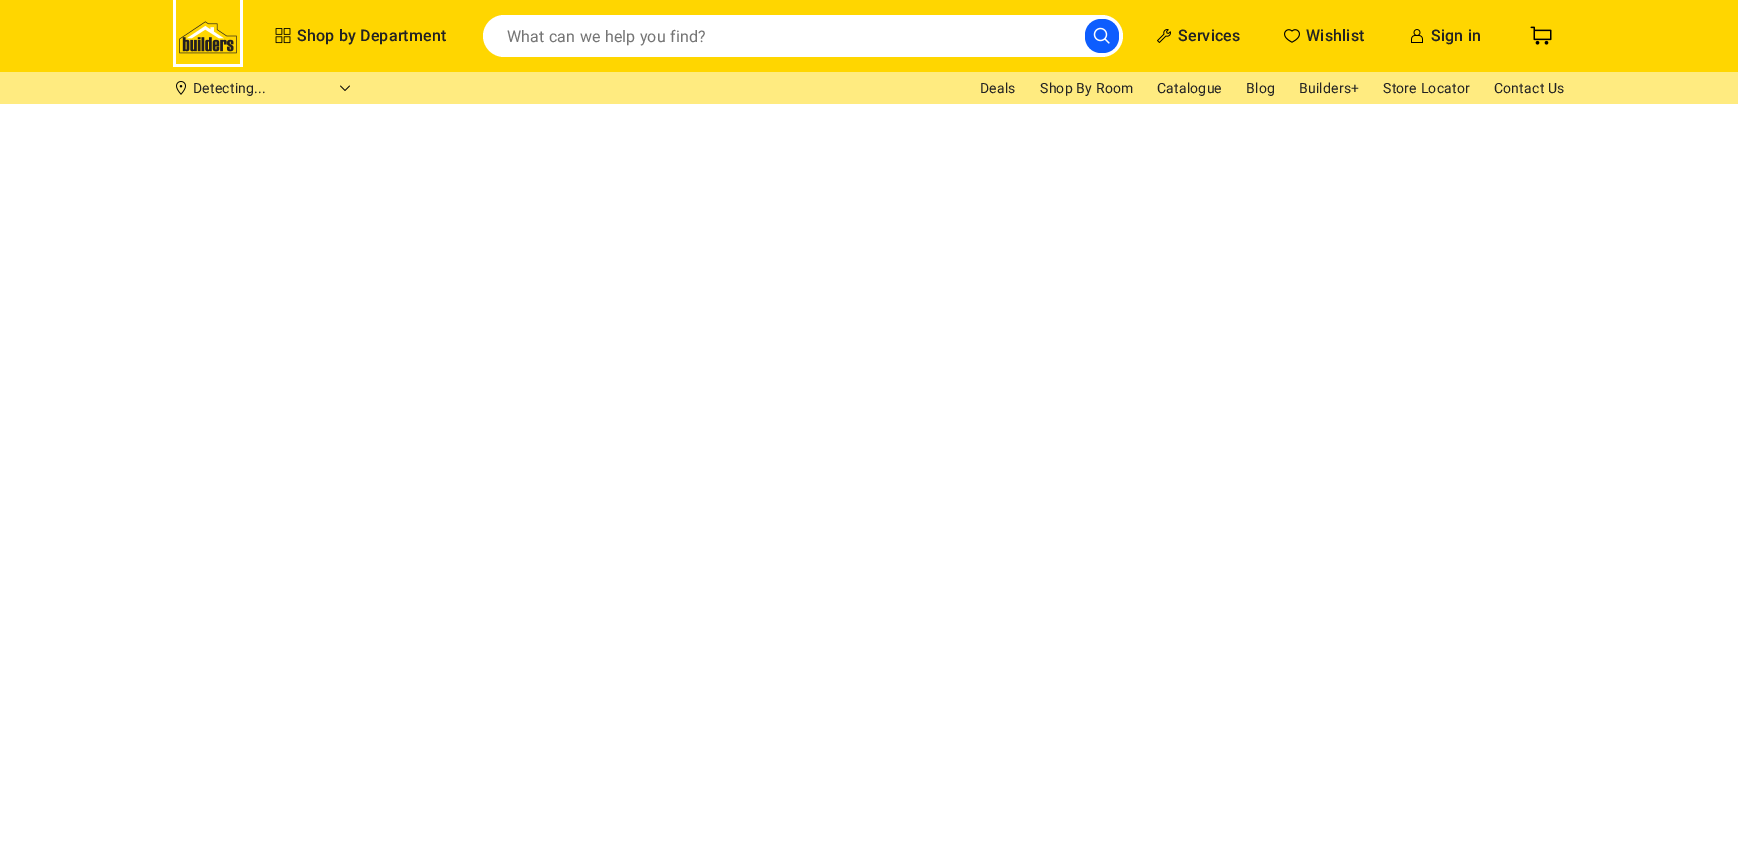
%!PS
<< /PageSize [1738 841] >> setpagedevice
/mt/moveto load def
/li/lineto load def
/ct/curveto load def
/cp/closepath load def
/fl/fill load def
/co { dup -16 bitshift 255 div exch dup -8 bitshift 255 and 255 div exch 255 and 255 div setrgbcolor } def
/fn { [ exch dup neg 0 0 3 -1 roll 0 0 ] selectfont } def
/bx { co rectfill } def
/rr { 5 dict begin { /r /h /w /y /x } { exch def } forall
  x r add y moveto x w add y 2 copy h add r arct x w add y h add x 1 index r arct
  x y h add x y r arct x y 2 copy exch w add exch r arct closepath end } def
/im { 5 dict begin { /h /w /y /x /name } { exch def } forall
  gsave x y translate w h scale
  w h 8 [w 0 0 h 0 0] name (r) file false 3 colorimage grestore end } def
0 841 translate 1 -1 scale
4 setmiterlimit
0 0 1738 841 16#FFFFFF bx
0 0 1738 72 16#FFD600 bx
(media/1.raw) 173 0 70 67 im
(media/2.raw) 275 28 16 16 im
16#FFFFFF co
504 15 mt 1081 15 li 1081 57 li 504 57 li 492.5 57 483 47.5 483 36 ct 483 24.5 492.5 15 504 15 ct cp fl
1081 15 mt 1102 15 li 1113.5 15 1123 24.5 1123 36 ct 1123 47.5 1113.5 57 1102 57 ct 1081 57 li cp fl
16#0D5DFE co
1085 19 34 34 16 rr fl
(media/3.raw) 1093 27 17 17 im
(media/4.raw) 1157 29 14 14 im
(media/5.raw) 1284 29 16 14 im
(media/6.raw) 1411 29 12 14 im
(media/7.raw) 1530 26 22 19 im
0 72 1738 32 16#FFEB80 bx
(media/8.raw) 176 81 10 14 im
(media/9.raw) 340 85 10 6 im
/Roboto-Medium 16 fn
16#222223 co
297 41 mt .2 0 (Shop by Department) ashow
/Roboto-Regular 16 fn
16#757575 co
507 42 mt .2 0 (What can we help you find?) ashow
/Roboto-Medium 16 fn
16#222223 co
1178 41 mt .2 0 (Services) ashow
1306 41 mt .2 0 (Wishlist) ashow
1431 41 mt .2 0 (Sign in) ashow
/Roboto-Regular 14 fn
193 93 mt .2 0 (Detecting...) ashow
980 93 mt .2 0 (Deals) ashow
1040 93 mt .2 0 (Shop By Room) ashow
1157 93 mt .2 0 (Catalogue) ashow
1246 93 mt .2 0 (Blog) ashow
1299 93 mt .2 0 (Builders+) ashow
1383 93 mt .2 0 (Store Locator) ashow
1494 93 mt .2 0 (Contact Us) ashow
showpage
